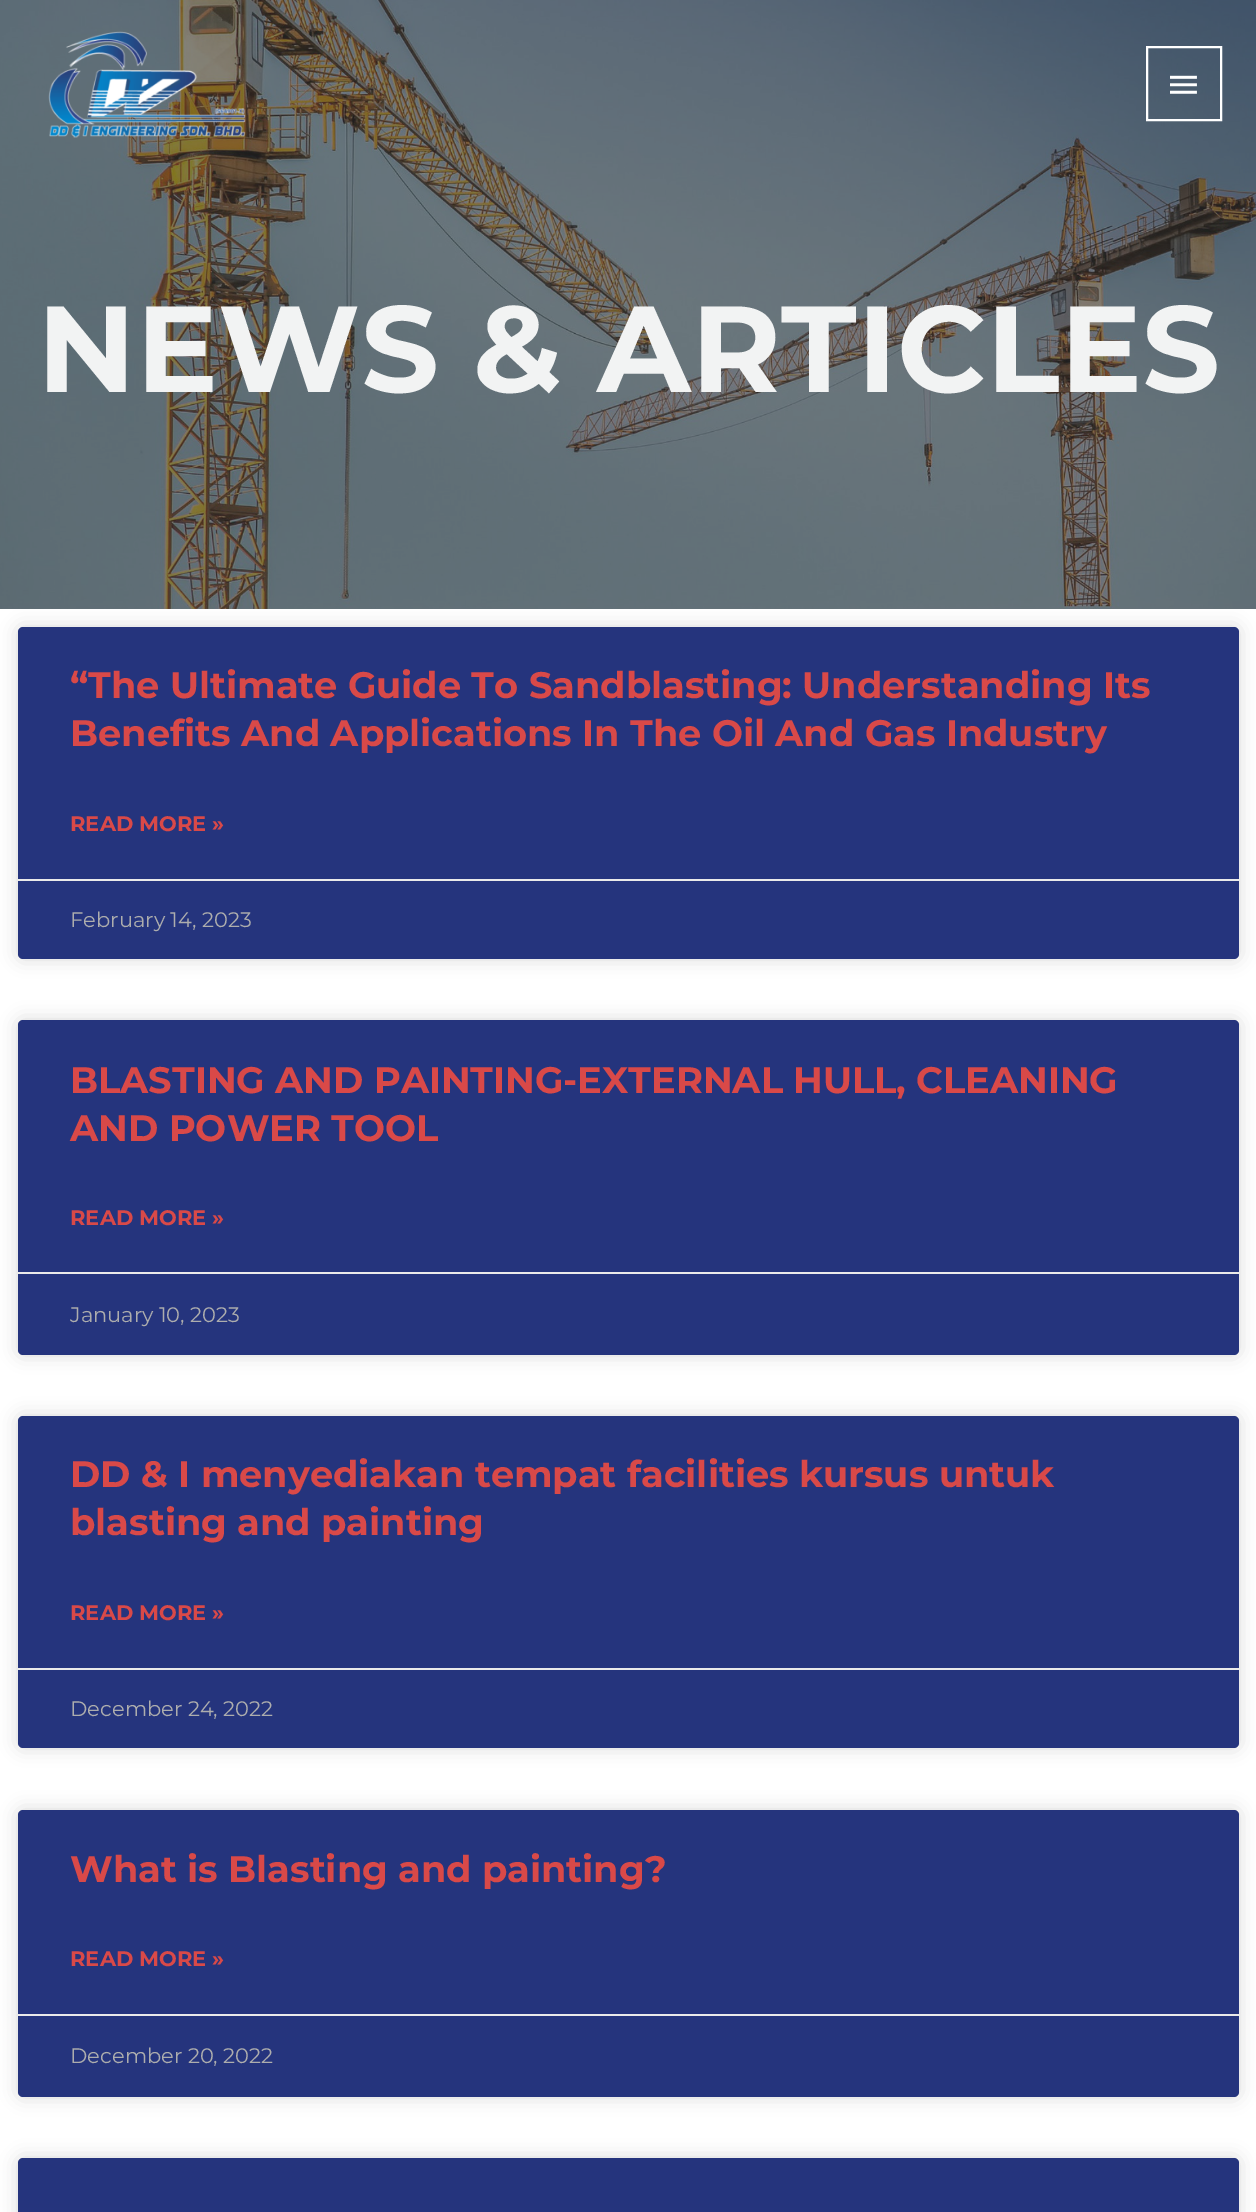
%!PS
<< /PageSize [1256 2212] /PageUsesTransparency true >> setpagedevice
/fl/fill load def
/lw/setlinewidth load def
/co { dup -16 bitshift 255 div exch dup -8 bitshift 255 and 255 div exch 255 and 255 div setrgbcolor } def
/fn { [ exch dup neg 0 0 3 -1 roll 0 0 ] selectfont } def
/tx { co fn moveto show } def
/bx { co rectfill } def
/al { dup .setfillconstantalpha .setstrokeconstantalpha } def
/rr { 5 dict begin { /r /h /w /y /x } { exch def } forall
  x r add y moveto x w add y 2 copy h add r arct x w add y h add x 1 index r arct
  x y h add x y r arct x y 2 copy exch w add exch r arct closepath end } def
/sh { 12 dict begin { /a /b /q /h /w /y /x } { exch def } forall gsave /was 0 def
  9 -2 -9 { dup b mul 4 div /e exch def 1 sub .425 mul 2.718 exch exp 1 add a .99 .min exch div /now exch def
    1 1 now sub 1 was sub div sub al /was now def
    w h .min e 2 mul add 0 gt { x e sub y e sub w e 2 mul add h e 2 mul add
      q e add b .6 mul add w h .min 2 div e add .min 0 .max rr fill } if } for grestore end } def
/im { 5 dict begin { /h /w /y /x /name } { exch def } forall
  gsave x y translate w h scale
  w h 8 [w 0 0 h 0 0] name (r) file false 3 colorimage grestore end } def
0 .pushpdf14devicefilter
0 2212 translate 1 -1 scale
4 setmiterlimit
0 0 1256 2212 16#FFFFFF bx
(media/3.raw) 0 0 1256 609 im
(media/1.raw) 48 31 198 107 im
2 lw
1147 47 74 73 rectstroke
(media/2.raw) 1170 75 27 19 im
16#000000 co
18 627 1221 332 5 9 .15 sh
16#25347D co
18 627 1221 332 5 rr fl
18 879 1221 2 16#EAEAEA bx
16#000000 co
18 1020 1221 335 5 9 .15 sh
16#25347D co
18 1020 1221 335 5 rr fl
18 1272 1221 2 16#EAEAEA bx
16#000000 co
18 1416 1221 332 5 9 .15 sh
16#25347D co
18 1416 1221 332 5 rr fl
18 1668 1221 2 16#EAEAEA bx
16#000000 co
18 1810 1221 287 5 9 .15 sh
16#25347D co
18 1810 1221 287 5 rr fl
18 2014 1221 2 16#EAEAEA bx
16#000000 co
18 2158 1221 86 5 9 .15 sh
16#25347D co
18 2158 1221 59 5 rr fl
(NEWS & ARTICLES) 37 392 /Montserrat-Bold 122.5 16#F2F3F3 tx
(“The Ultimate Guide To Sandblasting: Understanding Its) 70 698 /Montserrat-Bold 36.75 16#D94948 tx
(Benefits And Applications In The Oil And Gas Industry) 70 746 /Montserrat-Bold 36.75 16#D94948 tx
(READ MORE ») 70 831 /Montserrat-Bold 21 16#D94948 tx
(February 14, 2023) 70 927 /Montserrat-Regular 21 16#ADADAD tx
(BLASTING AND PAINTING-EXTERNAL HULL, CLEANING) 70 1093 /Montserrat-Bold 36.75 16#D94948 tx
(AND POWER TOOL) 70 1141 /Montserrat-Bold 36.75 16#D94948 tx
(READ MORE ») 70 1225 /Montserrat-Bold 21 16#D94948 tx
(January 10, 2023) 70 1322 /Montserrat-Regular 21 16#ADADAD tx
(DD & I menyediakan tempat facilities kursus untuk) 70 1487 /Montserrat-Bold 36.75 16#D94948 tx
(blasting and painting) 70 1535 /Montserrat-Bold 36.75 16#D94948 tx
(READ MORE ») 70 1620 /Montserrat-Bold 21 16#D94948 tx
(December 24, 2022) 70 1716 /Montserrat-Regular 21 16#ADADAD tx
(What is Blasting and painting?) 70 1882 /Montserrat-Bold 36.75 16#D94948 tx
(READ MORE ») 70 1966 /Montserrat-Bold 21 16#D94948 tx
(December 20, 2022) 70 2063 /Montserrat-Regular 21 16#ADADAD tx
.poppdf14devicefilter showpage
